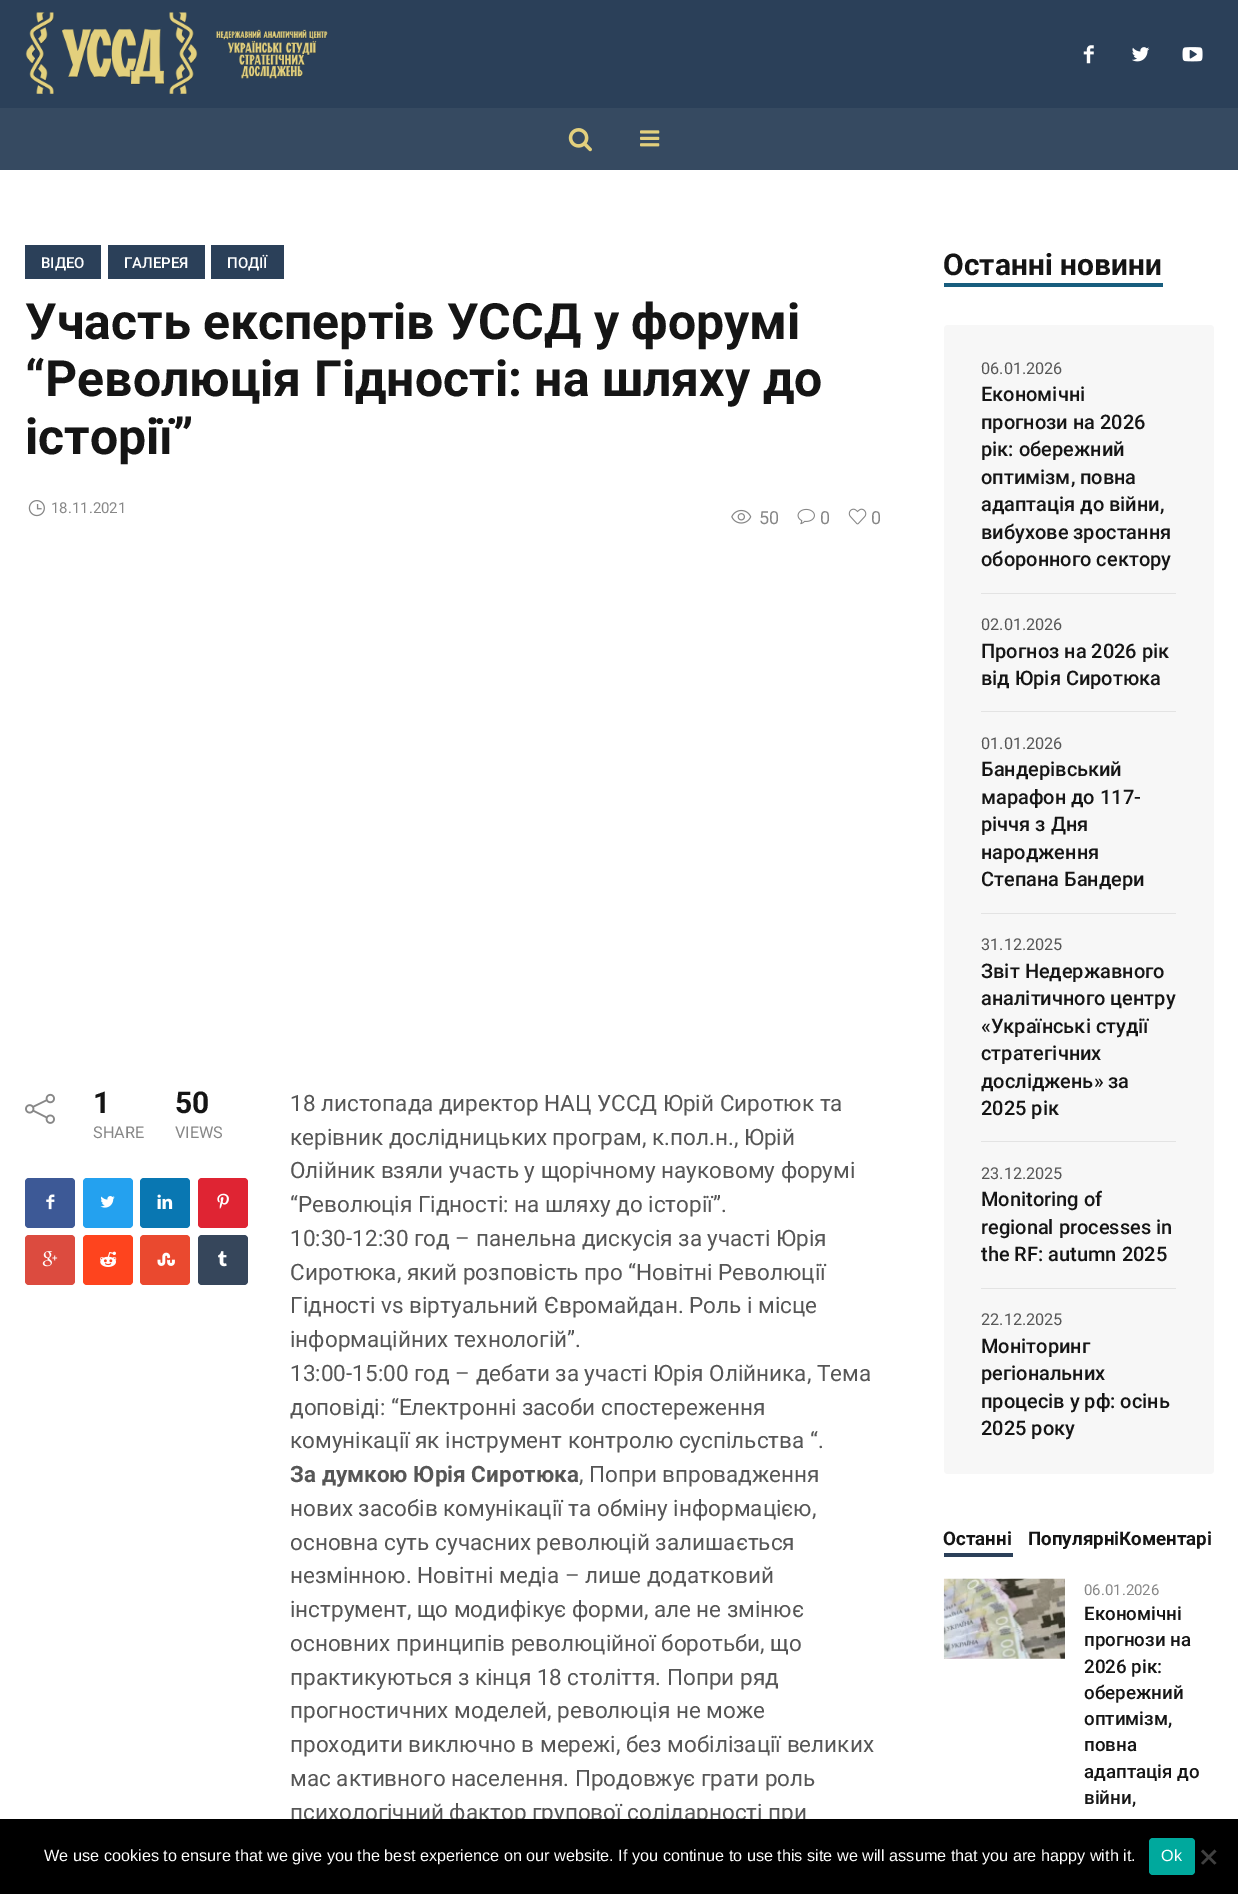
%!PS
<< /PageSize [1238 1894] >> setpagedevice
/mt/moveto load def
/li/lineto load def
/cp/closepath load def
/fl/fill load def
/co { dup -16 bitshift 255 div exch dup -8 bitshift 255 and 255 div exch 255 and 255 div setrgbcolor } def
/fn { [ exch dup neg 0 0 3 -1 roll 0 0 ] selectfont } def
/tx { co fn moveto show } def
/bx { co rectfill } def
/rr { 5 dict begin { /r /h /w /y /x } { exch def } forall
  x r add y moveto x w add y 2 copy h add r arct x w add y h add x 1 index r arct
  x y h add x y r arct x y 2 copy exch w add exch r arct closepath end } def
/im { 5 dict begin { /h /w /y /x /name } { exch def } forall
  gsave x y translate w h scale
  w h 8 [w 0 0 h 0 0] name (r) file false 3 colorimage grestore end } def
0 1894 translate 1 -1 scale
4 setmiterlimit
0 0 1238 1894 16#FFFFFF bx
0 0 1238 108 16#2B4059 bx
(media/1.raw) 25 12 303 82 im
(media/2.raw) 1083 45 11 19 im
(media/3.raw) 1132 47 18 15 im
(media/4.raw) 1182 47 21 15 im
0 108 1238 62 16#364A61 bx
(media/5.raw) 568 128 24 24 im
(media/6.raw) 640 130 20 17 im
25 245 76 34 16#2B4059 bx
108 245 97 34 16#2B4059 bx
211 245 73 34 16#2B4059 bx
(media/7.raw) 28 500 17 17 im
(media/8.raw) 731 509 21 15 im
(media/9.raw) 797 508 18 17 im
(media/10.raw) 848 508 19 17 im
(media/11.raw) 25 1093 30 31 im
16#3D5996 co
25 1178 50 50 4 rr fl
(media/12.raw) 46 1194 9 16 im
16#24A1EF co
83 1178 50 50 4 rr fl
(media/13.raw) 100 1196 15 12 im
16#0977B2 co
140 1178 50 50 4 rr fl
(media/14.raw) 157 1194 16 15 im
16#DF2433 co
198 1178 50 50 4 rr fl
(media/15.raw) 217 1193 12 16 im
16#DC4B3F co
25 1235 50 50 4 rr fl
(media/16.raw) 42 1251 16 16 im
16#FE441E co
83 1235 50 50 4 rr fl
(media/17.raw) 100 1251 17 16 im
16#EA492F co
140 1235 50 50 4 rr fl
(media/18.raw) 157 1252 18 14 im
16#36465B co
198 1235 50 50 4 rr fl
(media/19.raw) 218 1251 9 16 im
944 283 219 4 16#185D7E bx
16#F7F7F7 co
944 325 270 1149 4 rr fl
981 593 195 1 16#E3E3E3 bx
981 711 195 1 16#E3E3E3 bx
981 913 195 1 16#E3E3E3 bx
981 1141 195 1 16#E3E3E3 bx
981 1288 195 1 16#E3E3E3 bx
944 1553 69 4 16#2B4059 bx
(media/20.raw) 943 1578 122 81 im
(ВІДЕО) 41 268 /Roboto-Medium 15 16#FFFFFF tx
(ГАЛЕРЕЯ) 124 268 /Roboto-Medium 15 16#FFFFFF tx
(ПОДІЇ) 227 268 /Roboto-Medium 15 16#FFFFFF tx
(Участь експертів УССД у форумі) 25 339 /Roboto-Bold 50 16#151515 tx
(“Революція Гідності: на шляху до) 25 396 /Roboto-Bold 50 16#151515 tx
(історії”) 25 454 /Roboto-Bold 50 16#151515 tx
(18.11.2021) 51 513 /Roboto-Regular 15 16#878787 tx
(50) 759 524 /Roboto-Regular 18 16#878787 tx
(0) 820 524 /Roboto-Regular 18 16#878787 tx
(0) 871 524 /Roboto-Regular 18 16#878787 tx
(1) 93 1113 /Roboto-Bold 30 16#151515 tx
(SHARE) 93 1138 /Roboto-Regular 16.25 16#878787 tx
(50) 175 1113 /Roboto-Bold 30 16#151515 tx
(VIEWS) 175 1138 /Roboto-Regular 16.25 16#878787 tx
(18 листопада директор НАЦ УССД Юрій Сиротюк та) 290 1111 /Roboto-Regular 22.5 16#565656 tx
(керівник дослідницьких програм, к.пол.н., Юрій) 290 1145 /Roboto-Regular 22.5 16#565656 tx
(Олійник взяли участь у щорічному науковому форумі) 290 1178 /Roboto-Regular 22.5 16#565656 tx
(“Революція Гідності: на шляху до історії”.) 290 1212 /Roboto-Regular 22.5 16#565656 tx
(10:30-12:30 год – панельна дискусія за участі Юрія) 290 1246 /Roboto-Regular 22.5 16#565656 tx
(Сиротюка, який розповість про “Новітні Революції) 290 1280 /Roboto-Regular 22.5 16#565656 tx
(Гідності vs віртуальний Євромайдан. Роль і місце) 290 1313 /Roboto-Regular 22.5 16#565656 tx
(інформаційних технологій”.) 290 1347 /Roboto-Regular 22.5 16#565656 tx
(13:00-15:00 год – дебати за участі Юрія Олійника, Тема) 290 1381 /Roboto-Regular 22.5 16#565656 tx
(доповіді: “Електронні засоби спостереження) 290 1415 /Roboto-Regular 22.5 16#565656 tx
(комунікації як інструмент контролю суспільства “.) 290 1448 /Roboto-Regular 22.5 16#565656 tx
(За думкою Юрія Сиротюка) 290 1482 /Roboto-Bold 22.5 16#565656 tx
(, Попри впровадження) 579 1482 /Roboto-Regular 22.5 16#565656 tx
(нових засобів комунікації та обміну інформацією,) 290 1516 /Roboto-Regular 22.5 16#565656 tx
(основна суть сучасних революцій залишається) 290 1550 /Roboto-Regular 22.5 16#565656 tx
(незмінною. Новітні медіа – лише додатковий) 290 1583 /Roboto-Regular 22.5 16#565656 tx
(інструмент, що модифікує форми, але не змінює) 290 1617 /Roboto-Regular 22.5 16#565656 tx
(основних принципів революційної боротьби, що) 290 1651 /Roboto-Regular 22.5 16#565656 tx
(практикуються з кінця 18 століття. Попри ряд) 290 1685 /Roboto-Regular 22.5 16#565656 tx
(прогностичних моделей, революція не може) 290 1718 /Roboto-Regular 22.5 16#565656 tx
(проходити виключно в мережі, без мобілізації великих) 290 1752 /Roboto-Regular 22.5 16#565656 tx
(мас активного населення. Продовжує грати роль) 290 1786 /Roboto-Regular 22.5 16#565656 tx
(психологічний фактор групової солідарності при) 290 1820 /Roboto-Regular 22.5 16#565656 tx
(Останні новини) 943 275 /Roboto-Bold 30 16#151515 tx
(06.01.2026) 981 374 /Roboto-Regular 16.25 16#565656 tx
(Економічні) 981 401 /Roboto-Medium 20 16#151515 tx
(прогнози на 2026) 981 429 /Roboto-Medium 20 16#151515 tx
(рік: обережний) 981 456 /Roboto-Medium 20 16#151515 tx
(оптимізм, повна) 981 484 /Roboto-Medium 20 16#151515 tx
(адаптація до війни,) 981 511 /Roboto-Medium 20 16#151515 tx
(вибухове зростання) 981 539 /Roboto-Medium 20 16#151515 tx
(оборонного сектору) 981 566 /Roboto-Medium 20 16#151515 tx
(02.01.2026) 981 630 /Roboto-Regular 16.25 16#565656 tx
(Прогноз на 2026 рік) 981 658 /Roboto-Medium 20 16#151515 tx
(від Юрія Сиротюка) 981 685 /Roboto-Medium 20 16#151515 tx
(01.01.2026) 981 749 /Roboto-Regular 16.25 16#565656 tx
(Бандерівський) 981 776 /Roboto-Medium 20 16#151515 tx
(марафон до 117-) 981 804 /Roboto-Medium 20 16#151515 tx
(річчя з Дня) 981 831 /Roboto-Medium 20 16#151515 tx
(народження) 981 859 /Roboto-Medium 20 16#151515 tx
(Степана Бандери) 981 886 /Roboto-Medium 20 16#151515 tx
(31.12.2025) 981 950 /Roboto-Regular 16.25 16#565656 tx
(Звіт Недержавного) 981 978 /Roboto-Medium 20 16#151515 tx
(аналітичного центру) 981 1005 /Roboto-Medium 20 16#151515 tx
(«Українські студії) 981 1033 /Roboto-Medium 20 16#151515 tx
(стратегічних) 981 1060 /Roboto-Medium 20 16#151515 tx
(досліджень» за) 981 1088 /Roboto-Medium 20 16#151515 tx
(2025 рік) 981 1115 /Roboto-Medium 20 16#151515 tx
(23.12.2025) 981 1179 /Roboto-Regular 16.25 16#565656 tx
(Monitoring of) 981 1206 /Roboto-Medium 20 16#151515 tx
(regional processes in) 981 1234 /Roboto-Medium 20 16#151515 tx
(the RF: autumn 2025) 981 1261 /Roboto-Medium 20 16#151515 tx
(22.12.2025) 981 1325 /Roboto-Regular 16.25 16#565656 tx
(Моніторинг) 981 1353 /Roboto-Medium 20 16#151515 tx
(регіональних) 981 1380 /Roboto-Medium 20 16#151515 tx
(процесів у рф: осінь) 981 1408 /Roboto-Medium 20 16#151515 tx
(2025 року) 981 1435 /Roboto-Medium 20 16#151515 tx
(Останні) 943 1545 /Roboto-Bold 18.75 16#151515 tx
(ПопулярніКоментарі) 1028 1545 /Roboto-Bold 18.75 16#151515 tx
(06.01.2026) 1084 1595 /Roboto-Regular 15 16#878787 tx
(Економічні) 1084 1620 /Roboto-Medium 18.75 16#151515 tx
(прогнози на) 1084 1646 /Roboto-Medium 18.75 16#151515 tx
(2026 рік:) 1084 1673 /Roboto-Medium 18.75 16#151515 tx
(обережний) 1084 1699 /Roboto-Medium 18.75 16#151515 tx
(оптимізм,) 1084 1725 /Roboto-Medium 18.75 16#151515 tx
(повна) 1084 1751 /Roboto-Medium 18.75 16#151515 tx
(адаптація до) 1084 1778 /Roboto-Medium 18.75 16#151515 tx
(війни,) 1084 1804 /Roboto-Medium 18.75 16#151515 tx
0 1819 1238 75 16#000000 bx
(We use cookies to ensure that we give you the best experience on our website. If you continue to use this site we will assume that you are happy with it.) 44 1861 /LiberationSans-Regular 16.25 16#FFFFFF tx
16#00A99D co
1149 1838 46 37 4 rr fl
(Ok) 1161 1861 /LiberationSans-Regular 16.25 16#FFFFFF tx
16#404040 co
1214.5 1849.5 mt 1216.5 1851.5 li 1203 1864.5 li 1201 1863 li cp fl
1201 1851.5 mt 1203 1849.5 li 1216.5 1863 li 1214.5 1864.5 li cp fl
showpage
